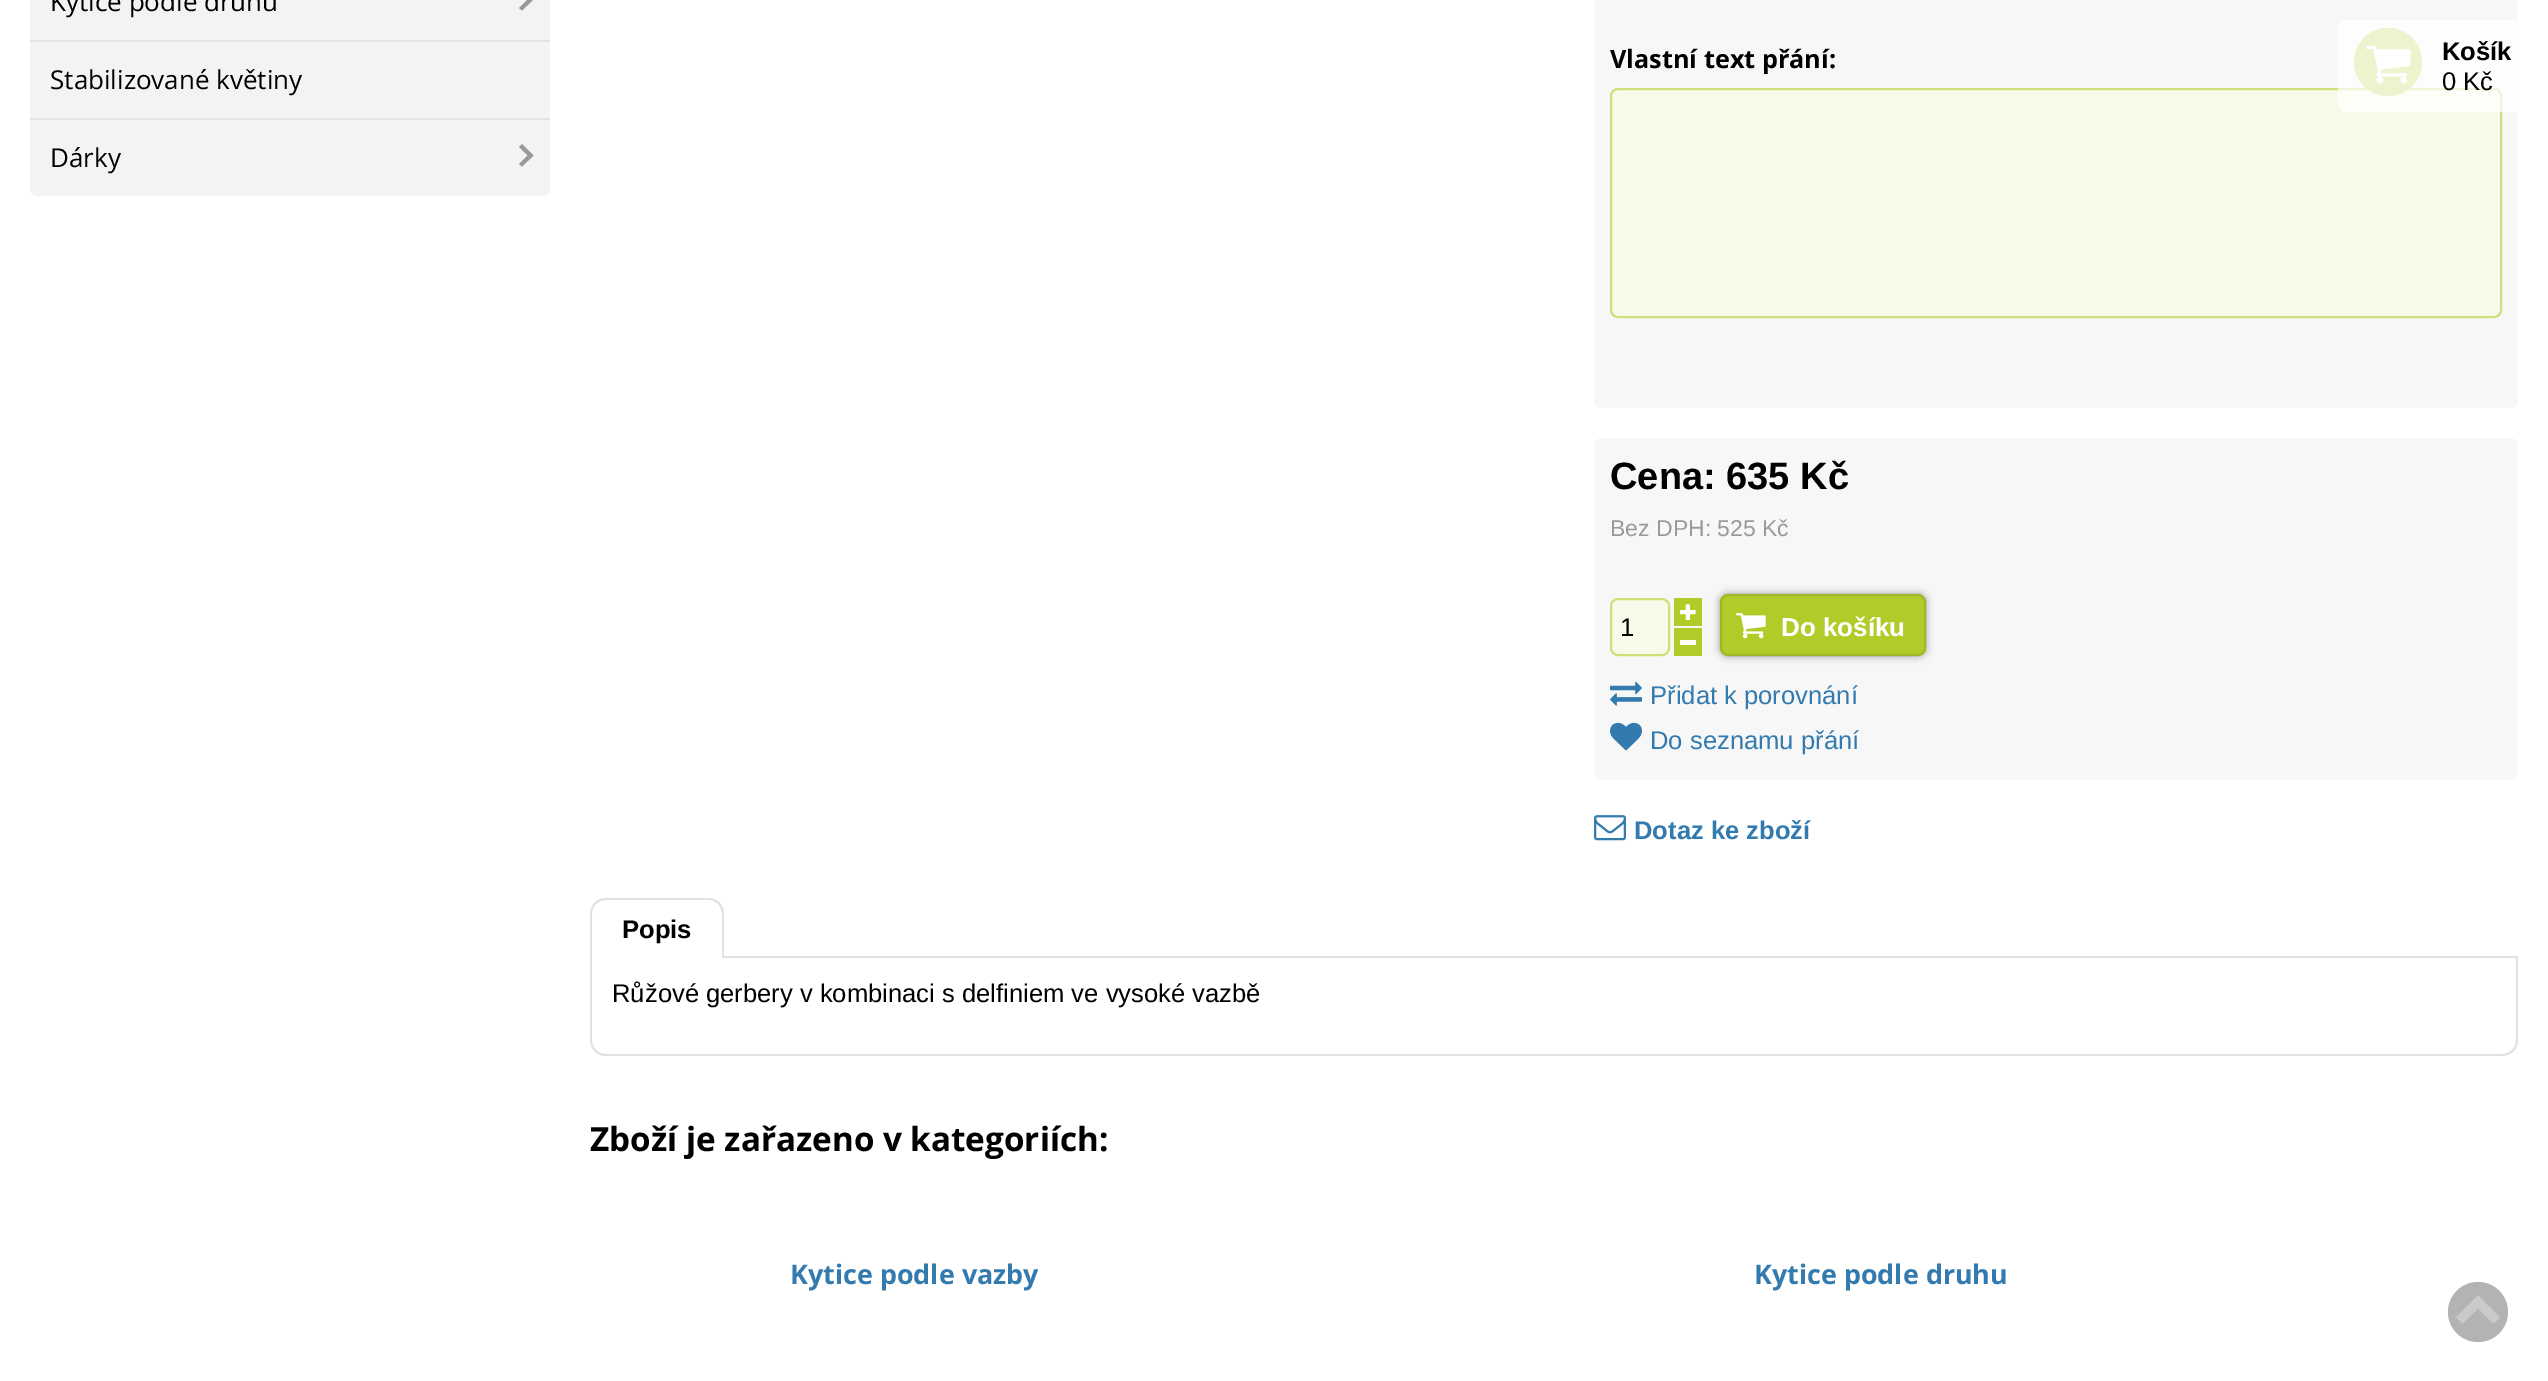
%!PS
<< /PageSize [2548 1381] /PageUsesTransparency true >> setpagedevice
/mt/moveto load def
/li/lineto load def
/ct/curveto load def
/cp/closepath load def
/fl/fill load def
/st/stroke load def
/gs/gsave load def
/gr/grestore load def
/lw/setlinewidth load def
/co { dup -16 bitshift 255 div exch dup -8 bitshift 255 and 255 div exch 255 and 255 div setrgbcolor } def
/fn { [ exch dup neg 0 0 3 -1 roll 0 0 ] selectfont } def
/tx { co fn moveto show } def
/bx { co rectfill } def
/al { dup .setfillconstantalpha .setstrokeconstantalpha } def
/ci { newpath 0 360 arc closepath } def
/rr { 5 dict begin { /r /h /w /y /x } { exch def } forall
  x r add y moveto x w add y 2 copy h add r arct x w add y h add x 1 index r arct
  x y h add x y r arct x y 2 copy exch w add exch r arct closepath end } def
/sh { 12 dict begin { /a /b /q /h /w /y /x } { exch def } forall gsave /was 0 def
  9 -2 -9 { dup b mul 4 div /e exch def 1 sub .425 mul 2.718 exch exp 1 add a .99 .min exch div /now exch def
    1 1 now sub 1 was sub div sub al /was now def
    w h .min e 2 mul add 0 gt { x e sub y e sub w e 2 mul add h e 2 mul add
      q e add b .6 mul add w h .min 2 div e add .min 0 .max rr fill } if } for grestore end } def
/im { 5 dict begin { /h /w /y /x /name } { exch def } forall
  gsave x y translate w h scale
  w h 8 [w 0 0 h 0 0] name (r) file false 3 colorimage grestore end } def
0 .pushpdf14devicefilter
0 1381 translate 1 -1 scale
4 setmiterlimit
0 0 2548 1381 16#FFFFFF bx
16#F3F3F3 co
30 -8 520 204 8 rr fl
16#999999 co
519 8 mt 530.5 -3.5 li 533.5 -.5 li 522 10.5 li cp fl
30 40 520 2 16#E3E3E3 bx
30 118 520 2 16#E3E3E3 bx
16#999999 co
519 147 mt 522 144 li 533.5 155.5 li 530.5 158 li cp fl
519 164 mt 530.5 152.5 li 533.5 155.5 li 522 166.5 li cp fl
16#F7F7F7 co
1594 -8 924 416 8 rr fl
16#F7FAE9 co
1611 89 890 228 7 rr gs fl gr
16#D0DF7A co
2 lw
st
16#F7F7F7 co
1594 438 924 342 8 rr fl
16#F7FAE9 co
1611 599 58 56 7 rr gs fl gr
16#D0DF7A co
st
1674 598 28 28 16#B3CB29 bx
(media/1.raw) 1680 604 16 16 im
1674 628 28 28 16#B3CB29 bx
1680 640 16 5 16#FFFFFF bx
16#000000 co
1720 594 206 62 8 4 .4 sh
16#B3CB29 co
1720 594 206 62 8 rr fl
0.1 al
16#000000 co
1721 595 204 60 7 rr st
1 al
(media/2.raw) 1736 613 30 26 im
(media/3.raw) 1610 681 32 25 im
(media/4.raw) 1610 722 32 29 im
(media/5.raw) 1594 815 32 26 im
724 956 1794 2 16#E1E1E1 bx
606 898 mt 708 898 li 717 898 724 905 724 914 ct 724 958 li 590 958 li 590 914 li 590 905 597 898 606 898 ct cp 606 900 mt 708 900 li 716 900 722 906 722 914 ct 722 958 li 592 958 li 592 914 li 592 906 598 900 606 900 ct cp eofill
590 958 mt 2518 958 li 2518 1040 li 2518 1049 2511 1056 2502 1056 ct 606 1056 li 597 1056 590 1049 590 1040 ct cp 592 958 mt 2516 958 li 2516 1040 li 2516 1048 2510 1054 2502 1054 ct 606 1054 li 598 1054 592 1048 592 1040 ct cp eofill
0.7 al
16#FFFFFF co
2338 20 190 92 8 rr fl
1 al
16#EDF3CD co
2388 62 34 ci fl
(media/6.raw) 2366 45 45 39 im
16#B3B3B3 co
2478 1312 30 ci fl
(media/7.raw) 2456 1296 44 28 im
(Kytice podle druhu) 50 11 /OpenSans-Regular 26 16#000000 tx
(Stabilizované květiny) 50 89 /OpenSans-Regular 26 16#000000 tx
(Dárky) 50 167 /OpenSans-Regular 26 16#000000 tx
(Vlastní text přání:) 1610 68 /OpenSans-Bold 25.25 16#000000 tx
(Cena: 635 Kč) 1610 489 /LiberationSans-Bold 38 16#000000 tx
(Bez DPH: 525 Kč) 1610 536 /LiberationSans-Regular 23 16#999999 tx
(1) 1620 636 /LiberationSans-Regular 25.6 16#000000 tx
(Do košíku) 1781 636 /LiberationSans-Bold 26 16#FFFFFF tx
(Přidat k porovnání) 1650 704 /LiberationSans-Regular 25.6 16#337BAF tx
(Do seznamu přání) 1650 749 /LiberationSans-Regular 25.6 16#337BAF tx
(Dotaz ke zboží) 1634 839 /LiberationSans-Bold 25.6 16#337BAF tx
(Popis) 622 938 /LiberationSans-Bold 25.6 16#000000 tx
(Růžové gerbery v kombinaci s delfiniem ve vysoké vazbě) 612 1002 /LiberationSans-Regular 25.6 16#000000 tx
(Zboží je zařazeno v kategoriích:) 590 1151 /OpenSans-Bold 33.25 16#000000 tx
(Kytice podle vazby) 790 1284 /OpenSans-Bold 26.9 16#337BAF tx
(Kytice podle druhu) 1754 1284 /OpenSans-Bold 26.9 16#337BAF tx
(Košík) 2442 60 /LiberationSans-Bold 25.6 16#000000 tx
(0 Kč) 2442 90 /LiberationSans-Regular 25.6 16#000000 tx
.poppdf14devicefilter showpage
